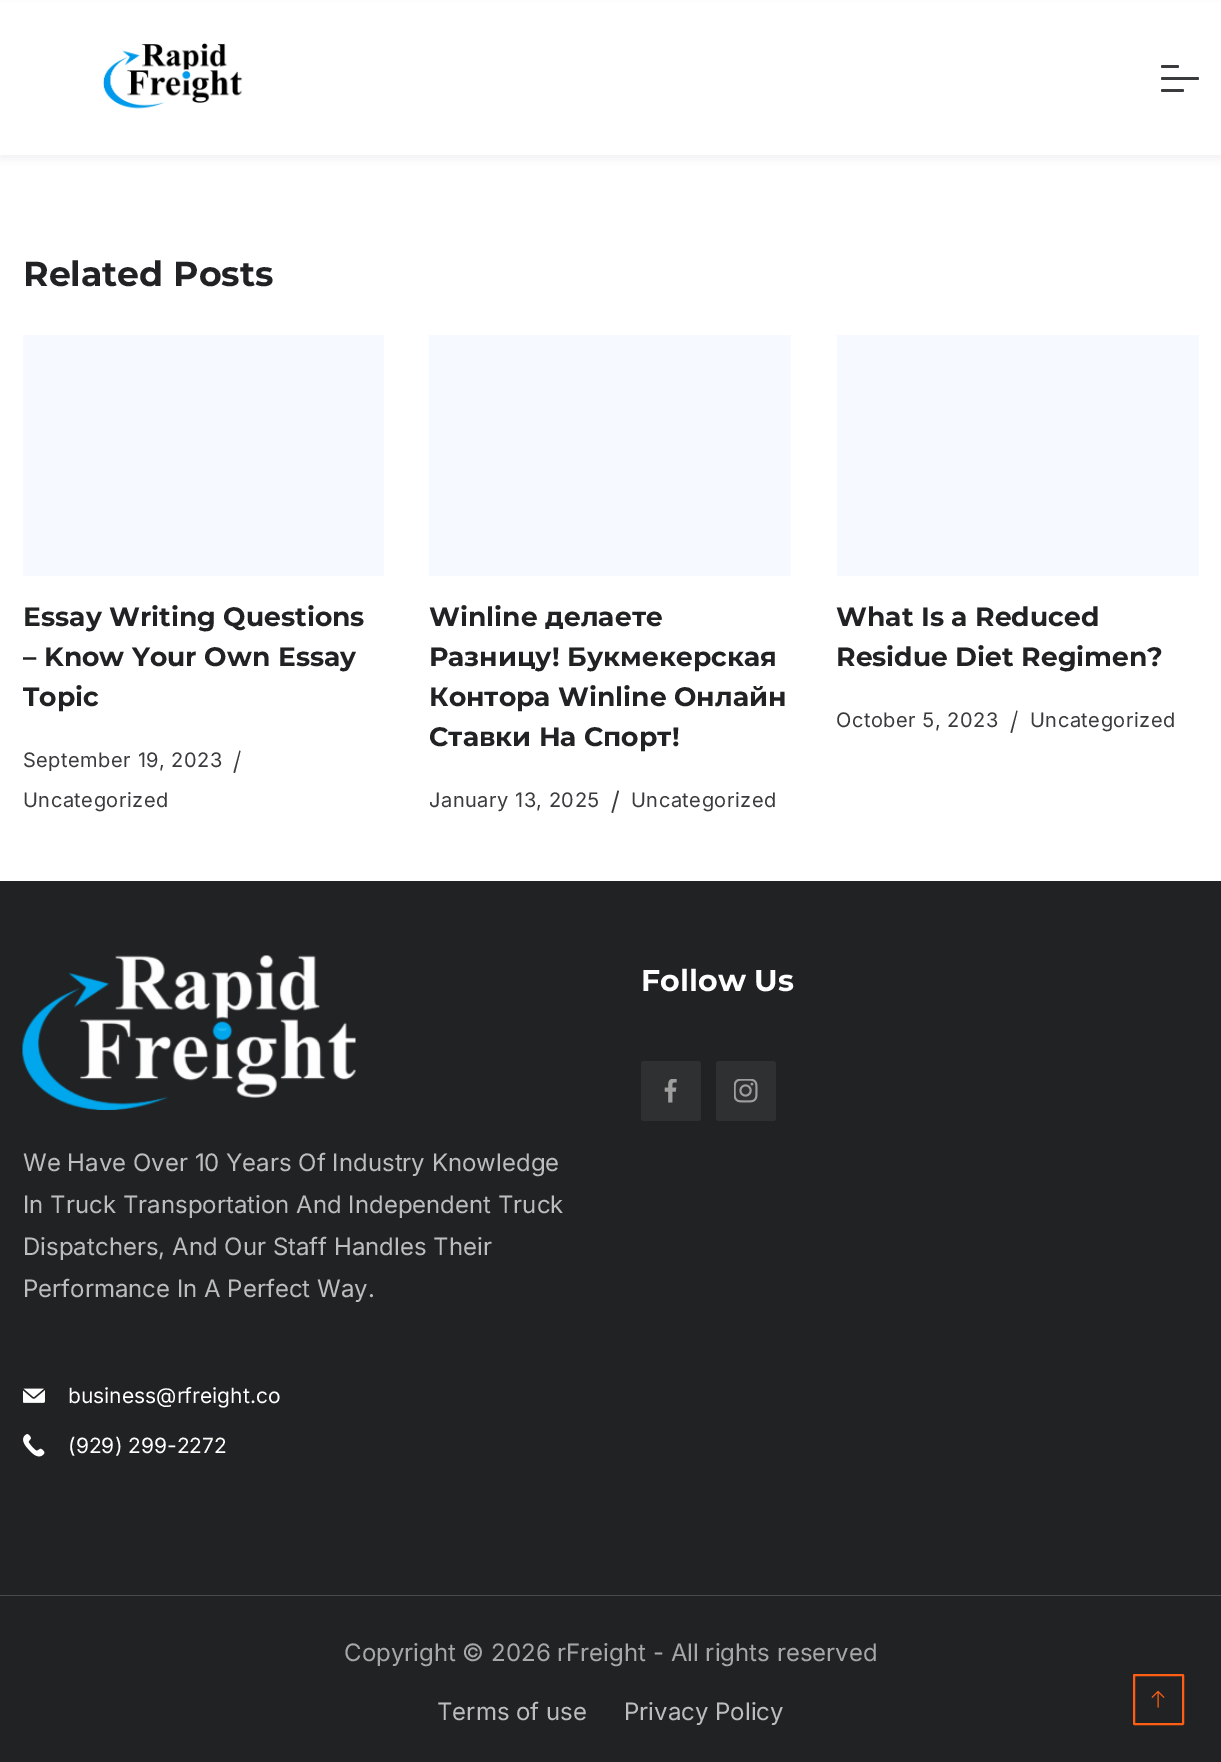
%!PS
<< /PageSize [1221 1762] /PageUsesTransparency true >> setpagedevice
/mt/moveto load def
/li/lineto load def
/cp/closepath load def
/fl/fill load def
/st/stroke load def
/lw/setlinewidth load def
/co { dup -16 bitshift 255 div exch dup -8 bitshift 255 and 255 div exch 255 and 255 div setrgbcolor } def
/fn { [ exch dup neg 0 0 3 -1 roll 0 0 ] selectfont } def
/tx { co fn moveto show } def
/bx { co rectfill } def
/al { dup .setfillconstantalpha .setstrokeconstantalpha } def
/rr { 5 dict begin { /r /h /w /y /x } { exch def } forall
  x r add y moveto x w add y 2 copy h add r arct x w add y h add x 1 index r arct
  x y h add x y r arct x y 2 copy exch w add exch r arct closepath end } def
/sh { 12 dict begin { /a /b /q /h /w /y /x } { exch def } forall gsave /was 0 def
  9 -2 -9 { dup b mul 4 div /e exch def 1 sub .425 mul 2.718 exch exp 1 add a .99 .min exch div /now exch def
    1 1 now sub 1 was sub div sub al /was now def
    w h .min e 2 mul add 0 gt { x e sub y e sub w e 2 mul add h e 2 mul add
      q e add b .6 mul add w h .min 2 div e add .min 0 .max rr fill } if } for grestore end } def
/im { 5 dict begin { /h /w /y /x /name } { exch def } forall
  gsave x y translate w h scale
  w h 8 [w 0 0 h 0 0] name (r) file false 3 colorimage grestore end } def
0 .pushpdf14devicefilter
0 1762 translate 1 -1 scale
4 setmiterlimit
0 0 1221 1762 16#FFFFFF bx
16#0F194D co
0 5 1221 154 0 4.5 .05 sh
0 2 1221 153 16#FFFFFF bx
(media/1.raw) 103 43 140 66 im
16#3A3B3D co
1161 77 38 3 1.5 rr fl
1161 65 18 3 1.5 rr fl
1161 89 23 3 1.5 rr fl
23 335 361 241 16#F6F9FF bx
16#3A3B3D co
239.5 750.5 mt 240.5 751 li 235 773 li 233.5 772.5 li cp fl
429 335 362 241 16#F6F9FF bx
16#3A3B3D co
617.5 790.5 mt 619 791 li 613 813 li 611.5 812.5 li cp fl
837 335 362 241 16#F6F9FF bx
16#3A3B3D co
1016.5 710.5 mt 1017.5 711 li 1012 733 li 1010.5 732.5 li cp fl
0 881 1221 714 16#212223 bx
0 1595 1221 1 16#4A4B4C bx
16#2F3031 co
641 1061 60 60 3 rr fl
(media/2.raw) 664 1079 13 24 im
716 1061 60 60 3 rr fl
(media/3.raw) 734 1079 24 24 im
(media/4.raw) 22 955 334 155 im
(media/5.raw) 23 1388 22 15 im
(media/6.raw) 23 1434 22 23 im
0 1596 1221 166 16#212223 bx
16#FF5E14 co
2 lw
1134 1675 49 49 .5 rr st
1 lw
1152 1697.5 mt 1158 1691.5 li 1164 1697.5 li 1158 1692.5 mt 1158 1707.5 li st
(Related Posts) 23 286 /Montserrat-Bold 34.75 16#212223 tx
(Essay Writing Questions) 23 626 /Montserrat-Bold 26.6 16#212223 tx
(– Know Your Own Essay) 23 666 /Montserrat-Bold 26.6 16#212223 tx
(Topic) 23 706 /Montserrat-Bold 26.6 16#212223 tx
/Inter-Regular 20 fn
16#3A3B3D co
23 767 mt .5 0 (September 19, 2023) ashow
23 807 mt .5 0 (Uncategorized) ashow
(Winline делаете) 429 626 /Montserrat-Bold 26.6 16#212223 tx
(Разницу! Букмекерская) 429 666 /Montserrat-Bold 26.6 16#212223 tx
(Контора Winline Онлайн) 429 706 /Montserrat-Bold 26.6 16#212223 tx
(Ставки На Спорт!) 429 746 /Montserrat-Bold 26.6 16#212223 tx
/Inter-Regular 20 fn
16#3A3B3D co
429 807 mt .5 0 (January 13, 2025) ashow
631 807 mt .5 0 (Uncategorized) ashow
(What Is a Reduced) 836 626 /Montserrat-Bold 26.6 16#212223 tx
(Residue Diet Regimen?) 836 666 /Montserrat-Bold 26.6 16#212223 tx
/Inter-Regular 20 fn
16#3A3B3D co
836 727 mt .5 0 (October 5, 2023) ashow
1030 727 mt .5 0 (Uncategorized) ashow
(Follow Us) 641 991 /Montserrat-Bold 30 16#FFFFFF tx
(We Have Over 10 Years Of Industry Knowledge) 23 1171 /Inter-Regular 24 16#BCBDBD tx
(In Truck Transportation And Independent Truck) 23 1213 /Inter-Regular 24 16#BCBDBD tx
(Dispatchers, And Our Staff Handles Their) 23 1255 /Inter-Regular 24 16#BCBDBD tx
(Performance In A Perfect Way.) 23 1297 /Inter-Regular 24 16#BCBDBD tx
(business@rfreight.co) 68 1403 /Inter-Regular 21 16#FFFFFF tx
(\(929\) 299-2272) 68 1453 /Inter-Regular 21 16#FFFFFF tx
(Copyright © 2026 rFreight - All rights reserved) 344 1661 /Inter-Regular 24 16#A6A7A7 tx
(Terms of use) 437 1720 /Inter-Regular 24 16#BCBDBD tx
(Privacy Policy) 624 1720 /Inter-Regular 24 16#BCBDBD tx
.poppdf14devicefilter showpage
